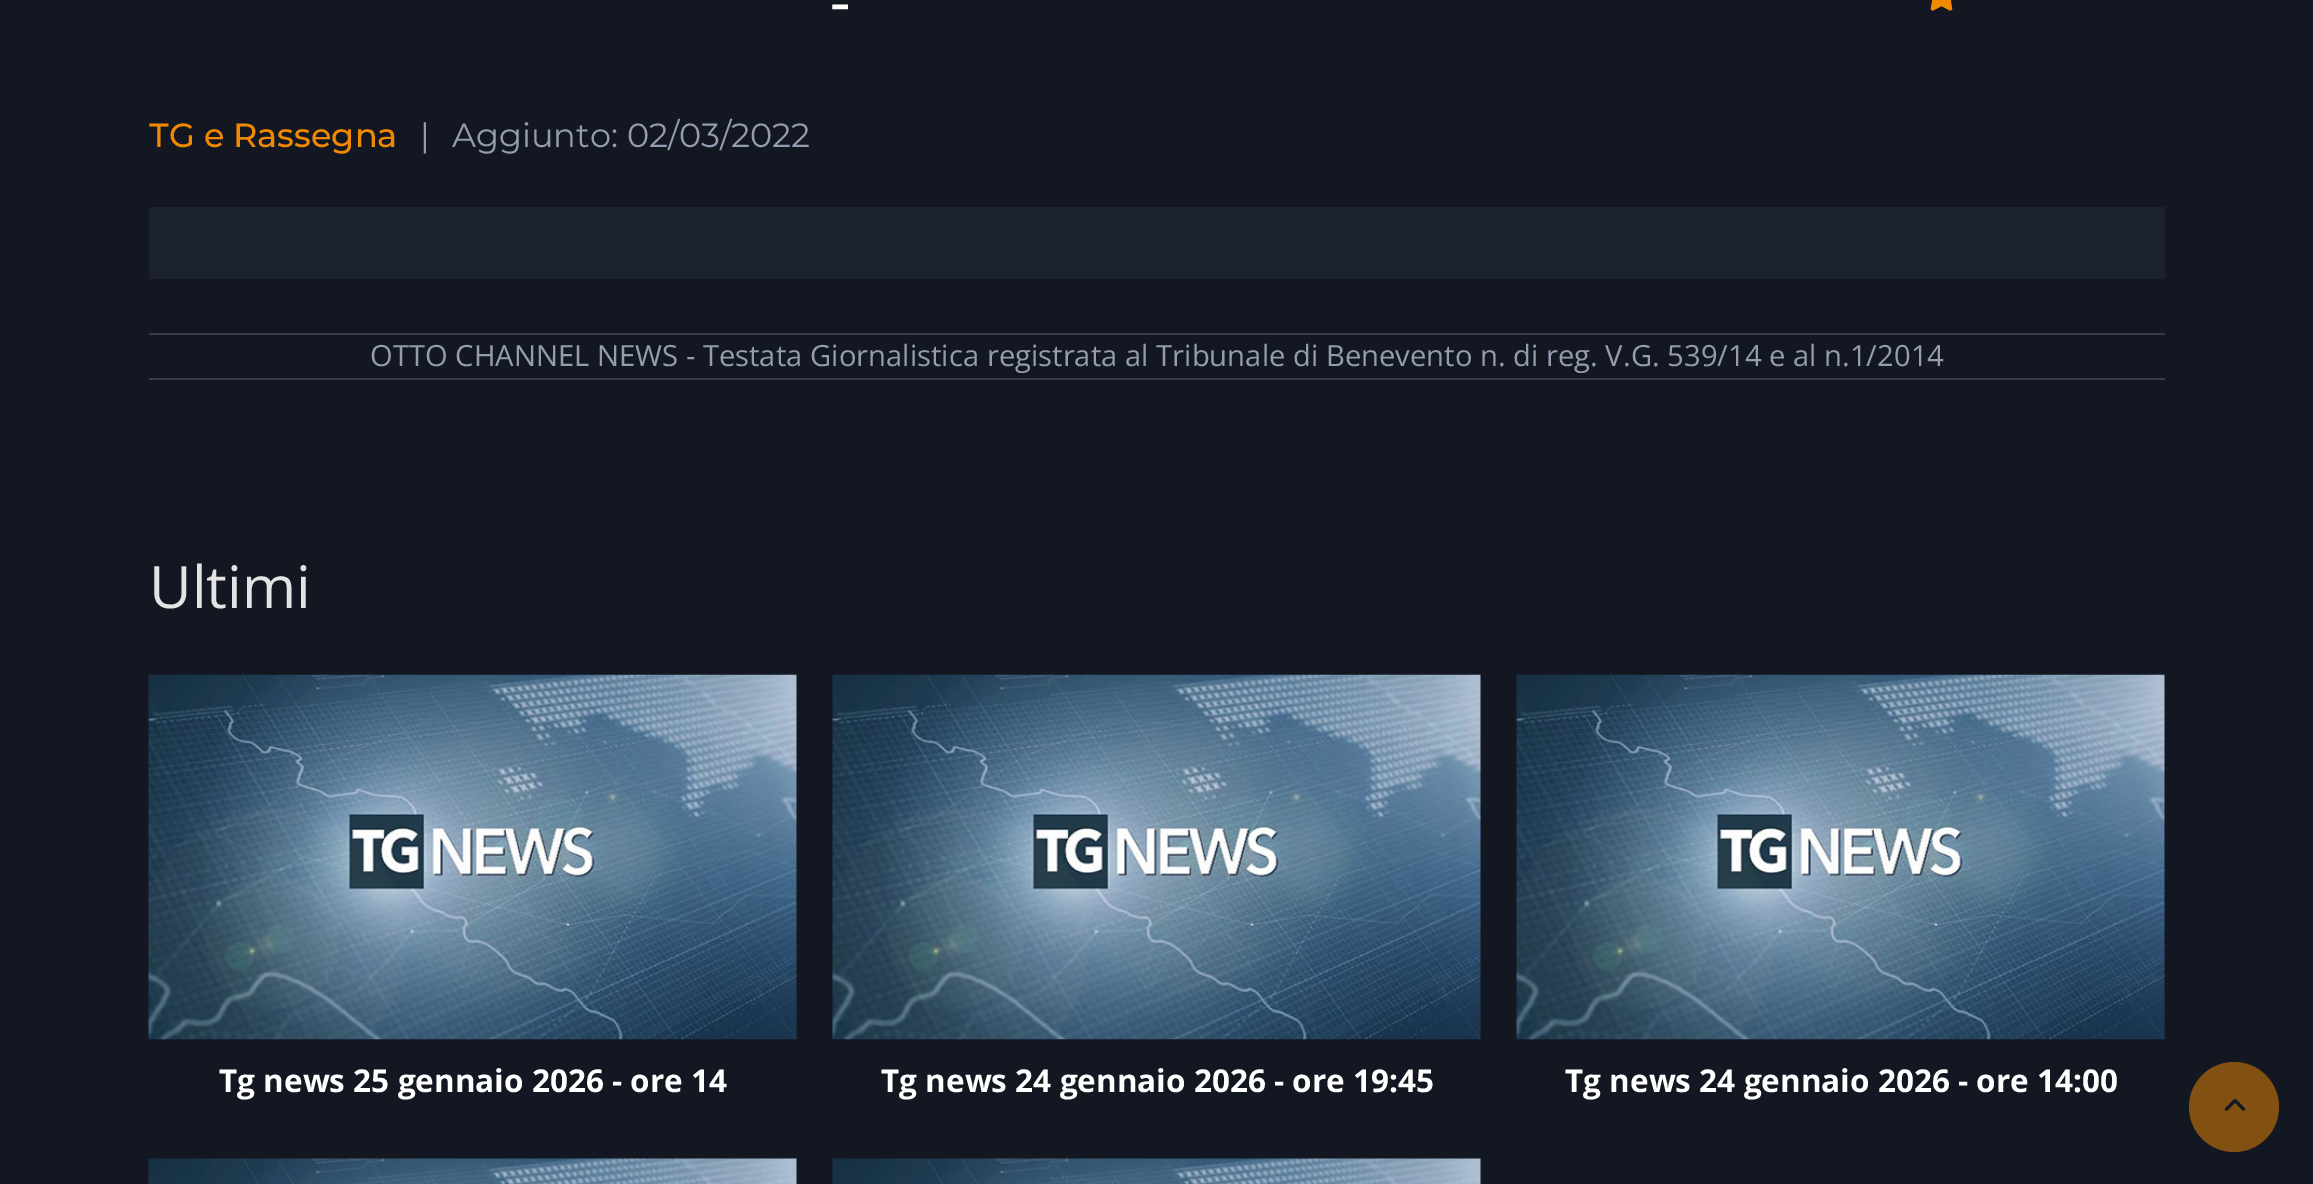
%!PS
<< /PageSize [2313 1184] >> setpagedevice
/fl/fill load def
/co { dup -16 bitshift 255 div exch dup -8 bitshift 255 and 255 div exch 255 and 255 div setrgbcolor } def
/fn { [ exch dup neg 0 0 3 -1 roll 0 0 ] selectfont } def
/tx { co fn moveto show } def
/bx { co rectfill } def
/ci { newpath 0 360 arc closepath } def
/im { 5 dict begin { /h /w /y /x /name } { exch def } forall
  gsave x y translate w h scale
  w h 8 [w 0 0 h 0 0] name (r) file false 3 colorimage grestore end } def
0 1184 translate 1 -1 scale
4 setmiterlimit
0 0 2313 1184 16#131722 bx
(media/1.raw) 1930 0 23 11 im
149 207 2016 72 16#1C212E bx
149 333 2016 2 16#373C49 bx
149 378 2016 2 16#373C49 bx
(media/2.raw) 148 674 649 366 im
(media/3.raw) 832 674 649 366 im
(media/3.raw) 1516 674 649 366 im
(media/4.raw) 148 1158 649 26 im
(media/5.raw) 832 1158 649 26 im
16#825011 co
2234 1107 45 ci fl
(media/6.raw) 2224 1098 22 13 im
(-) 829 23 /Montserrat-Medium 58.5 16#FFFFFF tx
(TG e Rassegna) 149 147 /Montserrat-Medium 33.5 16#F18900 tx
(|) 420 147 /Montserrat-Regular 33.5 16#949CB0 tx
(Aggiunto: 02/03/2022) 452 147 /Montserrat-Regular 33.5 16#949CB0 tx
(OTTO CHANNEL NEWS - Testata Giornalistica registrata al Tribunale di Benevento n. di reg. V.G. 539/14 e al n.1/2014) 370 366 /OpenSans-Regular 29.23 16#949CB0 tx
(Ultimi) 149 608 /OpenSans-Regular 58.5 16#E3E3E3 tx
(Tg news 25 gennaio 2026 - ore 14) 219 1092 /OpenSans-Bold 31.5 16#FFFFFF tx
(Tg news 24 gennaio 2026 - ore 19:45) 881 1092 /OpenSans-Bold 31.5 16#FFFFFF tx
(Tg news 24 gennaio 2026 - ore 14:00) 1565 1092 /OpenSans-Bold 31.5 16#FFFFFF tx
showpage
